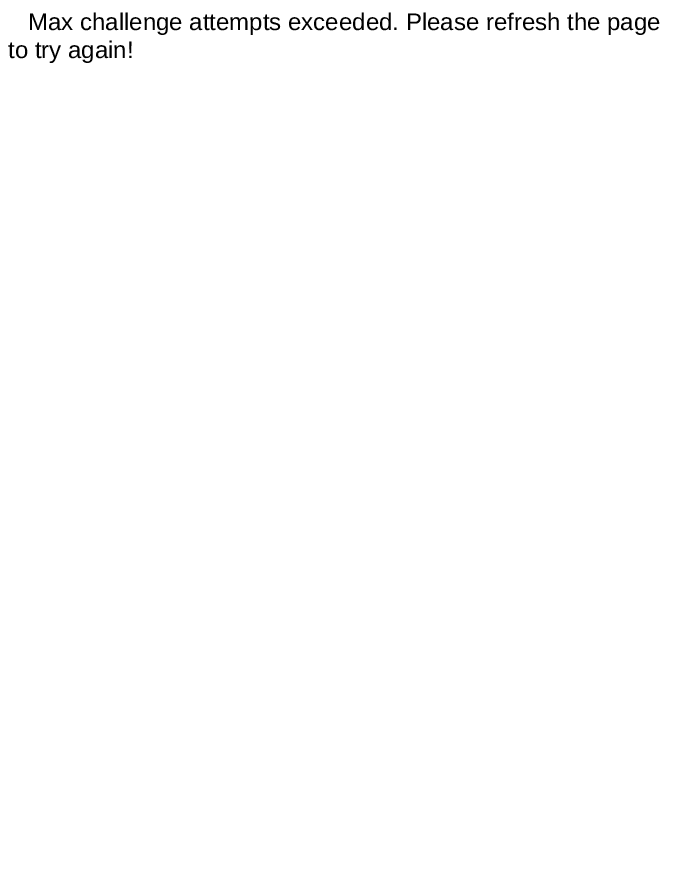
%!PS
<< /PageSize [690 884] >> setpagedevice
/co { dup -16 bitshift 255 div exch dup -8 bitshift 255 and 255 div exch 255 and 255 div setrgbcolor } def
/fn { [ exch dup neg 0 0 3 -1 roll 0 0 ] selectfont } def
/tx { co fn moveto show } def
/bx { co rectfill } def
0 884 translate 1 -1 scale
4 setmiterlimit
0 0 690 884 16#FFFFFF bx
(Max challenge attempts exceeded. Please refresh the page) 28 30 /LiberationSans-Regular 24 16#000000 tx
(to try again!) 8 58 /LiberationSans-Regular 24 16#000000 tx
showpage
